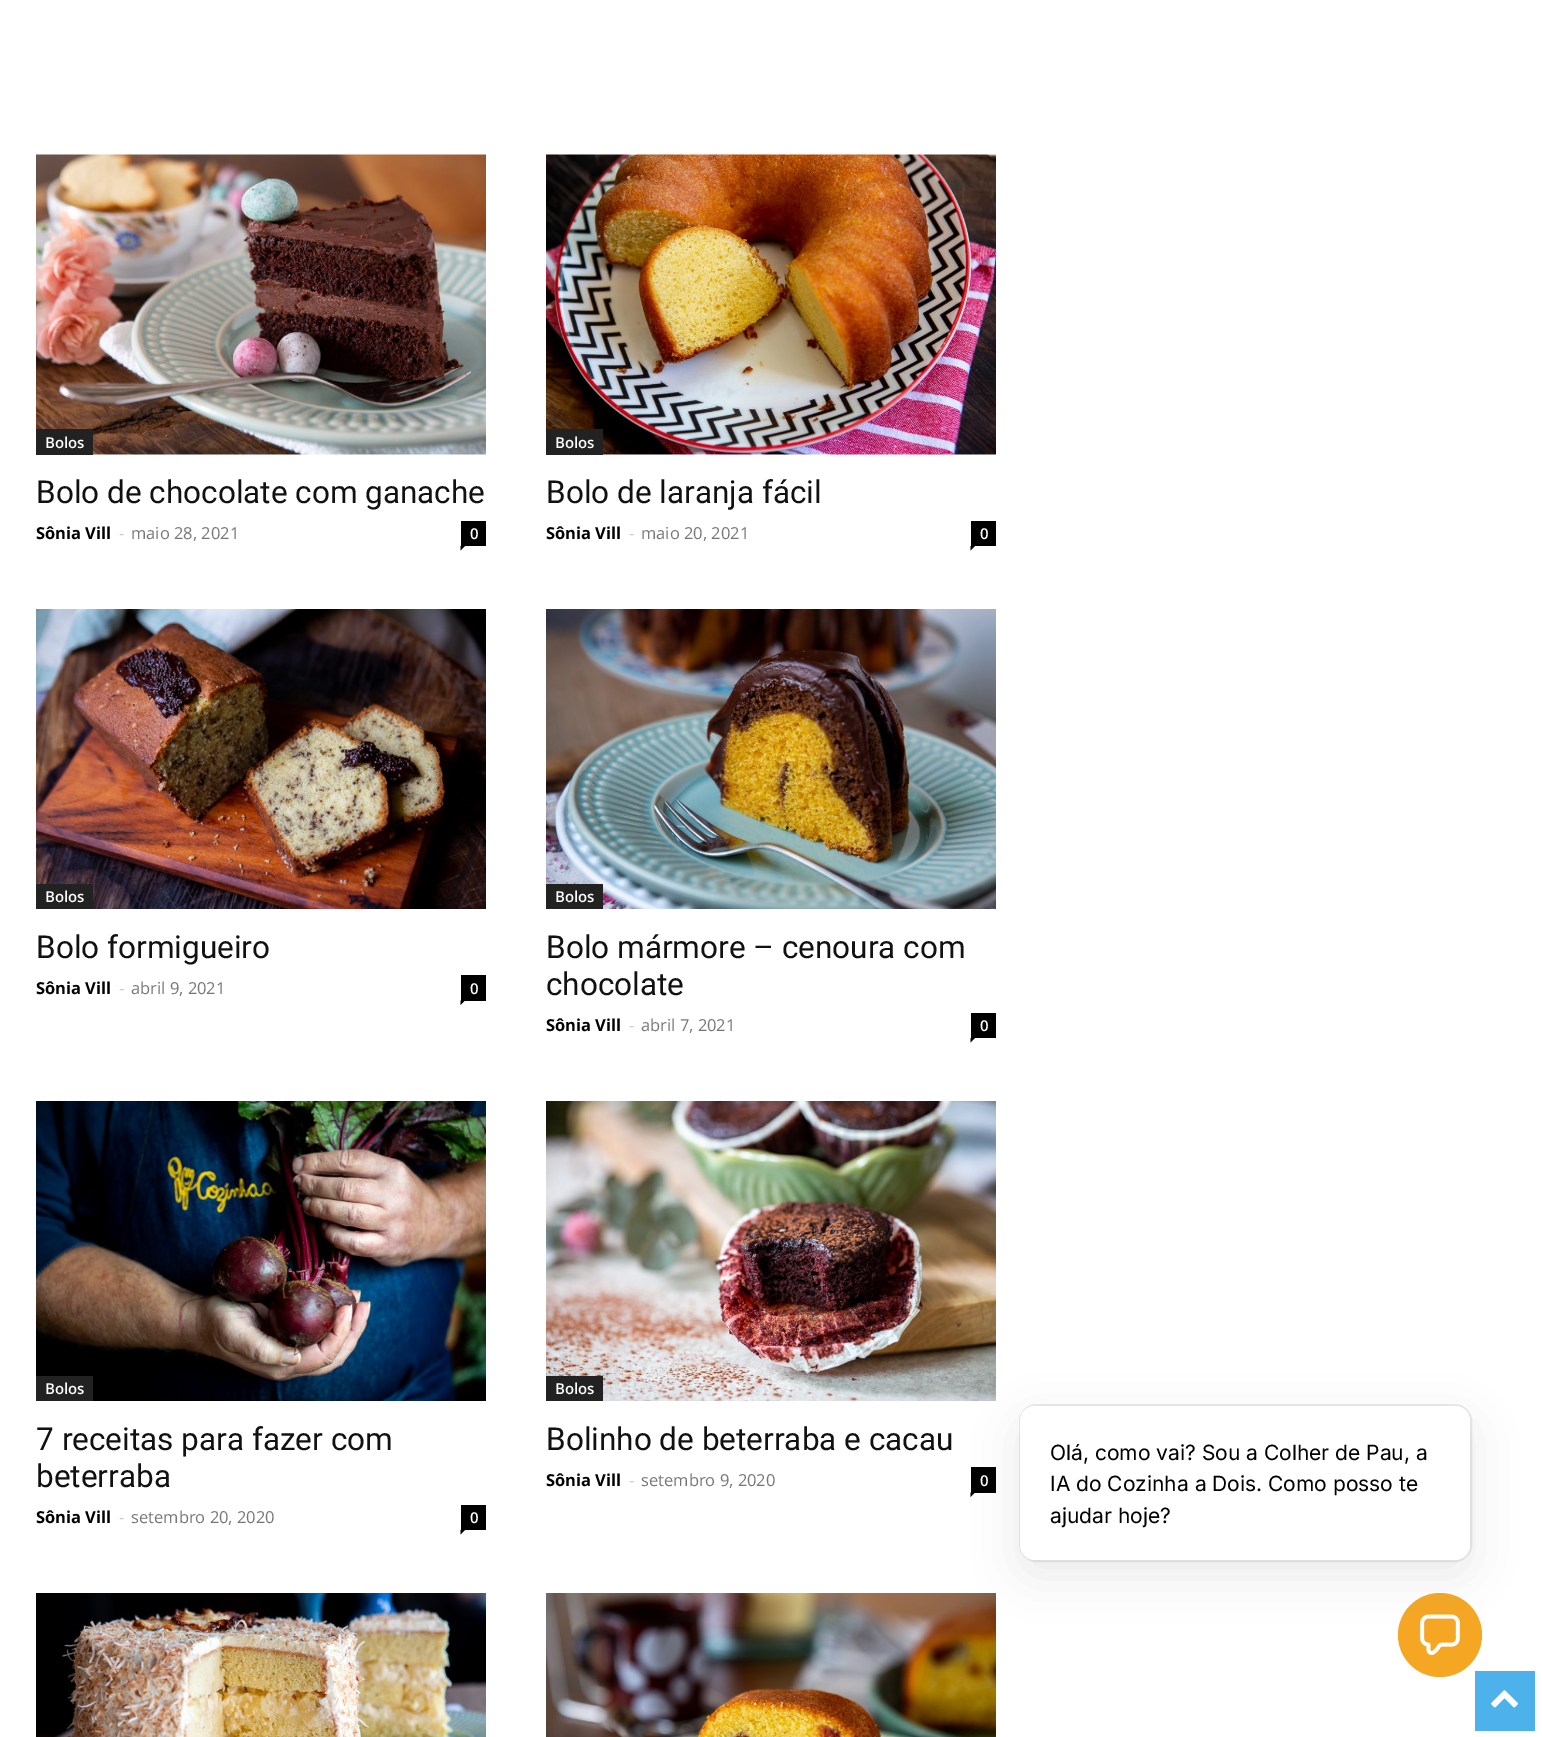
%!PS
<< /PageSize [1542 1737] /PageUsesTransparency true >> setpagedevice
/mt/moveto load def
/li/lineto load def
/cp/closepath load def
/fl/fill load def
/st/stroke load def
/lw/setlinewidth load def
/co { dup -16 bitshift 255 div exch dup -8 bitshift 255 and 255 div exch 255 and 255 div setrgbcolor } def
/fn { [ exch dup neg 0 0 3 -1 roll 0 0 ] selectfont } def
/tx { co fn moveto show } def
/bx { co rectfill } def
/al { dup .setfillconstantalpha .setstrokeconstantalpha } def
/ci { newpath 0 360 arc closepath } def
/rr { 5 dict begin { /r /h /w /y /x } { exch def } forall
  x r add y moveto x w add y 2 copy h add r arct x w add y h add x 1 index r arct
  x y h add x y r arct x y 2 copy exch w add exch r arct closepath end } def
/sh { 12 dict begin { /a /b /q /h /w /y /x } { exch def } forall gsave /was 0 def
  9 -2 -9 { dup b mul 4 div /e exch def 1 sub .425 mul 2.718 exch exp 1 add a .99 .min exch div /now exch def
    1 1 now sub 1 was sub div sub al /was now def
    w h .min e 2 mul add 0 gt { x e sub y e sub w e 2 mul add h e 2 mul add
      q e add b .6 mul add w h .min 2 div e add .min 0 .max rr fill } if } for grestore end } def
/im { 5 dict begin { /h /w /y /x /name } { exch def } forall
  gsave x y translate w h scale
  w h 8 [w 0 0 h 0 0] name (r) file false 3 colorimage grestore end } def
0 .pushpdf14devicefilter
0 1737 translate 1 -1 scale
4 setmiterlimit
0 0 1542 1737 16#FFFFFF bx
(media/1.raw) 36 154 450 301 im
36 429 57 26 16#222222 bx
461 521 25 25 16#000000 bx
460.5 546 mt 465 546 li 460.5 550.5 li cp fl
(media/2.raw) 546 154 450 301 im
546 429 57 26 16#222222 bx
971 521 25 25 16#000000 bx
970.5 546 mt 975 546 li 970.5 550.5 li cp fl
(media/3.raw) 36 609 450 300 im
36 884 57 25 16#222222 bx
461 975 25 26 16#000000 bx
460.5 1000.5 mt 465 1000.5 li 460.5 1005 li cp fl
(media/4.raw) 546 609 450 300 im
546 884 57 25 16#222222 bx
971 1013 25 25 16#000000 bx
970.5 1038 mt 975 1038 li 970.5 1042.5 li cp fl
(media/5.raw) 36 1101 450 300 im
36 1376 57 25 16#222222 bx
461 1505 25 25 16#000000 bx
460.5 1530 mt 465 1530 li 460.5 1534.5 li cp fl
(media/6.raw) 546 1101 450 300 im
546 1376 57 25 16#222222 bx
971 1467 25 26 16#000000 bx
970.5 1492.5 mt 975 1492.5 li 970.5 1497 li cp fl
(media/7.raw) 36 1593 450 144 im
(media/8.raw) 546 1593 450 144 im
16#EAEAEA co
2 lw
1020 1405 451 156 16 rr st
16#F5A623 co
1440 1635 42 ci fl
(media/9.raw) 1420 1614 40 42 im
16#969696 co
1020 1421 450 154 15 22.5 .2 sh
16#FFFFFF co
1020 1406 450 154 15 rr fl
1475 1671 60 60 16#4DB2EC bx
(media/10.raw) 1491 1690 27 18 im
(Bolos) 45 448 /OpenSans-SemiBold 15 16#FFFFFF tx
(Bolo de chocolate com ganache) 36 503 /Roboto-Regular 31.5 16#111111 tx
(Sônia Vill) 36 539 /OpenSans-Bold 16.5 16#000000 tx
(-) 119 539 /OpenSans-Regular 16.5 16#CCCCCC tx
(maio 28, 2021) 131 539 /OpenSans-Regular 16.5 16#767676 tx
(0) 470 539 /OpenSans-SemiBold 15 16#FFFFFF tx
(Bolos) 555 448 /OpenSans-SemiBold 15 16#FFFFFF tx
(Bolo de laranja fácil) 546 503 /Roboto-Regular 31.5 16#111111 tx
(Sônia Vill) 546 539 /OpenSans-Bold 16.5 16#000000 tx
(-) 629 539 /OpenSans-Regular 16.5 16#CCCCCC tx
(maio 20, 2021) 641 539 /OpenSans-Regular 16.5 16#767676 tx
(0) 980 539 /OpenSans-SemiBold 15 16#FFFFFF tx
(Bolos) 45 902 /OpenSans-SemiBold 15 16#FFFFFF tx
(Bolo formigueiro) 36 958 /Roboto-Regular 31.5 16#111111 tx
(Sônia Vill) 36 994 /OpenSans-Bold 16.5 16#000000 tx
(-) 119 994 /OpenSans-Regular 16.5 16#CCCCCC tx
(abril 9, 2021) 131 994 /OpenSans-Regular 16.5 16#767676 tx
(0) 470 994 /OpenSans-SemiBold 15 16#FFFFFF tx
(Bolos) 555 902 /OpenSans-SemiBold 15 16#FFFFFF tx
(Bolo mármore – cenoura com) 546 958 /Roboto-Regular 31.5 16#111111 tx
(chocolate) 546 995 /Roboto-Regular 31.5 16#111111 tx
(Sônia Vill) 546 1031 /OpenSans-Bold 16.5 16#000000 tx
(-) 629 1031 /OpenSans-Regular 16.5 16#CCCCCC tx
(abril 7, 2021) 641 1031 /OpenSans-Regular 16.5 16#767676 tx
(0) 980 1031 /OpenSans-SemiBold 15 16#FFFFFF tx
(Bolos) 45 1394 /OpenSans-SemiBold 15 16#FFFFFF tx
(7 receitas para fazer com) 36 1450 /Roboto-Regular 31.5 16#111111 tx
(beterraba) 36 1487 /Roboto-Regular 31.5 16#111111 tx
(Sônia Vill) 36 1523 /OpenSans-Bold 16.5 16#000000 tx
(-) 119 1523 /OpenSans-Regular 16.5 16#CCCCCC tx
(setembro 20, 2020) 131 1523 /OpenSans-Regular 16.5 16#767676 tx
(0) 470 1523 /OpenSans-SemiBold 15 16#FFFFFF tx
(Bolos) 555 1394 /OpenSans-SemiBold 15 16#FFFFFF tx
(Bolinho de beterraba e cacau) 546 1450 /Roboto-Regular 31.5 16#111111 tx
(Sônia Vill) 546 1486 /OpenSans-Bold 16.5 16#000000 tx
(-) 629 1486 /OpenSans-Regular 16.5 16#CCCCCC tx
(setembro 9, 2020) 641 1486 /OpenSans-Regular 16.5 16#767676 tx
(0) 980 1486 /OpenSans-SemiBold 15 16#FFFFFF tx
(Olá, como vai? Sou a Colher de Pau, a) 1050 1460 /Inter-Regular 21 16#000000 tx
(IA do Cozinha a Dois. Como posso te) 1050 1491 /Inter-Regular 21 16#000000 tx
(ajudar hoje?) 1050 1523 /Inter-Regular 21 16#000000 tx
.poppdf14devicefilter showpage
